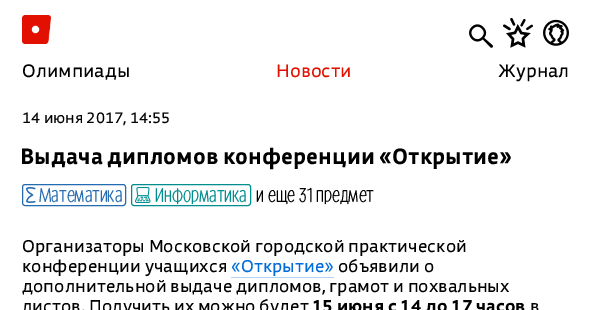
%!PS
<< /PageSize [591 310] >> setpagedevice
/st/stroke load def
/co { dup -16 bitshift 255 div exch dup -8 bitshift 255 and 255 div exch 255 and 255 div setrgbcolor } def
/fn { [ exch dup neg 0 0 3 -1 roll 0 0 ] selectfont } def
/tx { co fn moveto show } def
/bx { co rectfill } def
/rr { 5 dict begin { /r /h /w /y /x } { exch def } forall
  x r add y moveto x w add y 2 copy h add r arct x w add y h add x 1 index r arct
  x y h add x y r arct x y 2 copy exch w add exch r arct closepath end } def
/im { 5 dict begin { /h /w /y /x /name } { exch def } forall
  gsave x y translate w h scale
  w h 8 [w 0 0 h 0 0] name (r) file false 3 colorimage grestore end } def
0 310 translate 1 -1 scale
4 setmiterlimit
0 0 591 310 16#FFFFFF bx
(media/1.raw) 22 15 29 29 im
(media/2.raw) 469 24 24 24 im
(media/3.raw) 503 17 30 31 im
(media/4.raw) 543 19 26 27 im
16#246BB2 co
22.5 184.5 103 21 2.5 rr st
(media/5.raw) 26 187 10 16 im
16#008E8F co
131.5 184.5 119 21 2.5 rr st
(media/6.raw) 135 187 16 16 im
231 277 103 1 16#B3D3F4 bx
(Олимпиады) 22 77 /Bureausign-Regular 18 16#000000 tx
(Новости) 276 77 /Bureausign-Regular 18 16#E11000 tx
(Журнал) 498 77 /Bureausign-Regular 18 16#000000 tx
(14 июня 2017, 14:55) 22 123 /Bureausign-Regular 15 16#000000 tx
(Выдача дипломов конференции «Открытие») 20 164 /Bureausign-Bold 22 16#000000 tx
(Математика) 39 202 /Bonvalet-Regular 20 16#246BB2 tx
(Информатика) 155 202 /Bonvalet-Regular 20 16#008E8F tx
(и еще 31 предмет) 256 202 /Bonvalet-Regular 20 16#000000 tx
(Организаторы Московской городской практической) 22 252 /Bureausign-Regular 17 16#000000 tx
(конференции учащихся) 22 272 /Bureausign-Regular 17 16#000000 tx
(«Открытие») 231 272 /Bureausign-Regular 17 16#006CD9 tx
(объявили о) 338 272 /Bureausign-Regular 17 16#000000 tx
(дополнительной выдаче дипломов, грамот и похвальных) 22 292 /Bureausign-Regular 17 16#000000 tx
(листов. Получить их можно будет) 22 312 /Bureausign-Regular 17 16#000000 tx
(15 июня с 14 до 17 часов) 312 312 /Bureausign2-Bold 17 16#000000 tx
(в) 530 312 /Bureausign-Regular 17 16#000000 tx
showpage
